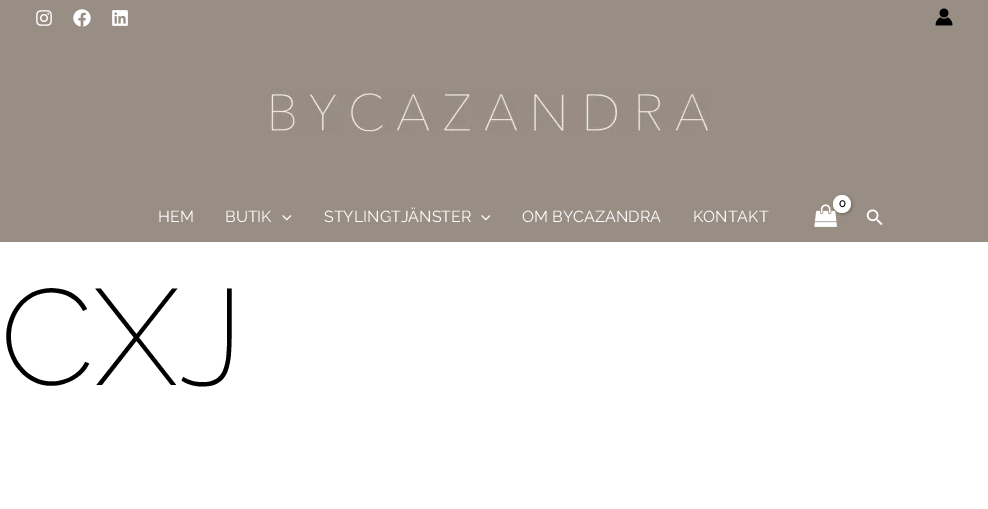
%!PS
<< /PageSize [988 509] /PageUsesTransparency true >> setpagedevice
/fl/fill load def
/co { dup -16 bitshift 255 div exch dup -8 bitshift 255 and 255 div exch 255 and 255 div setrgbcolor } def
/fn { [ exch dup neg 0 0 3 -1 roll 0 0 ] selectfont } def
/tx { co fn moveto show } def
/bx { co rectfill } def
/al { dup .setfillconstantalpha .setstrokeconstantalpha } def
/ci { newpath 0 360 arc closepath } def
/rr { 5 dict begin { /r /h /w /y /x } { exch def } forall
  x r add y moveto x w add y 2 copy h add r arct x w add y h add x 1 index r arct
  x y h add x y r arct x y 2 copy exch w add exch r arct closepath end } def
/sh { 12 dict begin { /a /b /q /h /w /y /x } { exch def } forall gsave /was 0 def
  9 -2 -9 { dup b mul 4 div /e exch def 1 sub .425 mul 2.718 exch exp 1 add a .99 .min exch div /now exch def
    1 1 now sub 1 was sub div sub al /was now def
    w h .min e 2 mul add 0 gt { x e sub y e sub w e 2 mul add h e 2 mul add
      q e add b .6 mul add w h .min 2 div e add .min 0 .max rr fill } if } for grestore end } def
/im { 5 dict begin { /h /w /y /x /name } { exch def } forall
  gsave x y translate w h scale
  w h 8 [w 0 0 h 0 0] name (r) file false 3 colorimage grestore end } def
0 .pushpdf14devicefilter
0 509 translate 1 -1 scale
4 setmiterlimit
0 0 988 509 16#FFFFFF bx
0 0 988 33 16#988E83 bx
(media/1.raw) 36 10 16 16 im
(media/2.raw) 73 9 18 18 im
(media/3.raw) 112 10 16 16 im
(media/4.raw) 935 8 18 18 im
0 192 988 50 16#988E83 bx
(media/6.raw) 814 204 23 23 im
16#000000 co
834 196 18 18 9 1.5 .3 sh
0 33 988 159 16#988E83 bx
(media/5.raw) 269 91 440 41 im
16#FFFFFF co
842 204 9 ci fl
(media/7.raw) 282 215 10 6 im
(media/8.raw) 481 215 9 6 im
(media/9.raw) 866 209 17 17 im
(0) 839 207 /Raleway-Bold 11 16#000000 tx
(HEM) 158 222 /Raleway-Regular 16 16#FFFFFF tx
(BUTIK) 225 222 /Raleway-Regular 16 16#FFFFFF tx
(STYLINGTJÄNSTER) 324 222 /Raleway-Regular 16 16#FFFFFF tx
(OM BYCAZANDRA) 522 222 /Raleway-Regular 16 16#FFFFFF tx
(KONTAKT) 693 222 /Raleway-Regular 16 16#FFFFFF tx
(CXJ) 0 385 /Raleway-ExtraLight 136 16#000000 tx
.poppdf14devicefilter showpage
